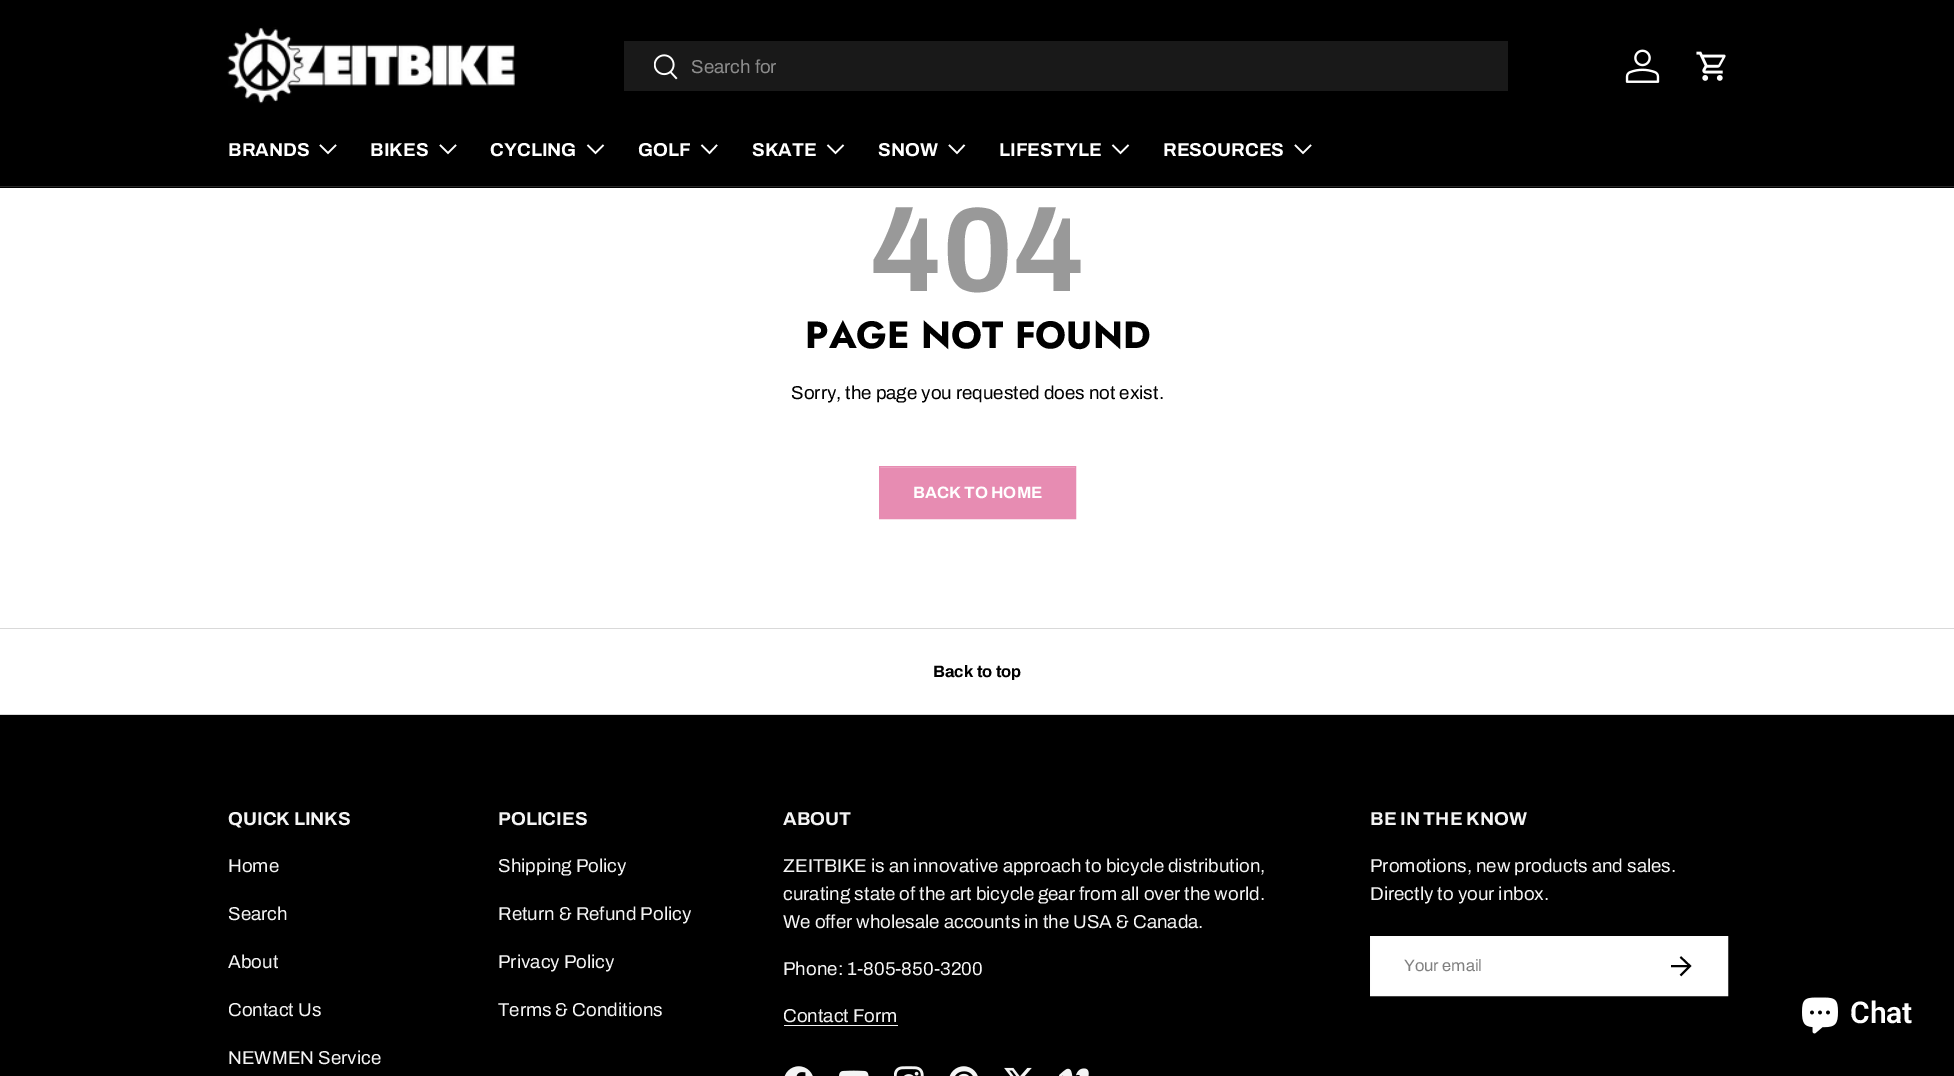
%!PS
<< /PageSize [1954 1076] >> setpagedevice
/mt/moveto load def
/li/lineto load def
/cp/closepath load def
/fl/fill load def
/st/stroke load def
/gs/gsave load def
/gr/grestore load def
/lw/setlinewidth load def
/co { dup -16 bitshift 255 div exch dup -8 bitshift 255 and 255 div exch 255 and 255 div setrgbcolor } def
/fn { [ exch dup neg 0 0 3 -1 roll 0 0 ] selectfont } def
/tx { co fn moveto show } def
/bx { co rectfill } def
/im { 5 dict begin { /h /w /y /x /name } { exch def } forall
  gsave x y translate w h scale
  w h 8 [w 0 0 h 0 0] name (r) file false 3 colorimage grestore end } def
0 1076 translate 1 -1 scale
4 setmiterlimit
0 0 1954 1076 16#FFFFFF bx
0 0 1954 188 16#000000 bx
0 186 1954 1 16#262626 bx
(media/1.raw) 227 27 288 77 im
624 41 884 50 16#191919 bx
(media/2.raw) 654 54 24 26 im
(media/3.raw) 1625 49 35 34 im
(media/4.raw) 1696 51 30 30 im
16#FFFFFF co
1.6 lw
336 145 mt 328 153 li 320 145 li st
456 145 mt 448 153 li 440 145 li st
603.5 145 mt 595.5 153 li 587.5 145 li st
717 145 mt 709.5 153 li 701.5 145 li st
843.5 145 mt 835.5 153 li 827.5 145 li st
964.5 145 mt 957 153 li 949 145 li st
1128.5 145 mt 1120.5 153 li 1112.5 145 li st
1311 145 mt 1303 153 li 1295 145 li st
880 467 195 1 16#EEAAC6 bx
gs 880 468 mt 1075 468 li 1075 518 li 880 518 li cp clip newpath
<< /ShadingType 2 /ColorSpace /DeviceRGB /Coords [501 422 1064 563] /Extend [true true] /Function << /FunctionType 3 /Domain [0 1] /Functions [<< /FunctionType 2 /Domain [0 1] /C0 [.933 .667 .776] /C1 [.933 .667 .776] /N 1 >> << /FunctionType 2 /Domain [0 1] /C0 [.906 .549 .698] /C1 [.906 .549 .698] /N 1 >>] /Bounds [.6] /Encode [0 1 0 1] >> >> shfill gr
16#E78CB2 co
1 lw
879.5 466.5 196 52 rectstroke
0 628 1954 1 16#D9D9D9 bx
0 714 1954 1 16#D9D9D9 bx
0 715 1954 361 16#000000 bx
784 1025 114 1 16#F4F4F4 bx
(media/5.raw) 784 1066 29 10 im
(media/6.raw) 839 1070 30 6 im
(media/7.raw) 894 1066 30 10 im
(media/8.raw) 949 1066 29 10 im
(media/9.raw) 1004 1067 28 9 im
(media/10.raw) 1059 1068 30 8 im
16#FFFFFF co
1370.5 936.5 mt 1727.5 936.5 li 1727.5 995.5 li 1370.5 995.5 li cp gs fl gr
16#FDFDFD co
st
16#000000 co
1.9 lw
1671 966 mt 1689 966 li 1680.5 957 mt 1690 966 li 1680.5 975.5 li st
(media/11.raw) 1802 997 36 37 im
(Search for) 691 73 /Archivo-Regular 18.75 16#8C8C8C tx
(BRANDS) 228 156 /Archivo-Bold 18.75 16#FFFFFF tx
(BIKES) 370 156 /Archivo-Bold 18.75 16#FFFFFF tx
(CYCLING) 490 156 /Archivo-Bold 18.75 16#FFFFFF tx
(GOLF) 638 156 /Archivo-Bold 18.75 16#FFFFFF tx
(SKATE) 752 156 /Archivo-Bold 18.75 16#FFFFFF tx
(SNOW) 878 156 /Archivo-Bold 18.75 16#FFFFFF tx
(LIFESTYLE) 999 156 /Archivo-Bold 18.75 16#FFFFFF tx
(RESOURCES) 1163 156 /Archivo-Bold 18.75 16#FFFFFF tx
(404) 870 291 /Archivo-Bold 120 16#999999 tx
(PAGE NOT FOUND) 805 348 /Jost-Bold 37.75 16#000000 tx
(Sorry, the page you requested does not exist.) 791 399 /Archivo-Regular 18.75 16#000000 tx
(BACK TO HOME) 913 498 /Archivo-Bold 16.5 16#FFFFFF tx
(Back to top) 933 677 /Archivo-Bold 16.5 16#000000 tx
(QUICK LINKS) 228 825 /Archivo-Bold 18.75 16#F4F4F4 tx
(Home) 228 872 /Archivo-Regular 18.75 16#F4F4F4 tx
(Search) 228 920 /Archivo-Regular 18.75 16#F4F4F4 tx
(About) 228 968 /Archivo-Regular 18.75 16#F4F4F4 tx
(Contact Us) 228 1016 /Archivo-Regular 18.75 16#F4F4F4 tx
(NEWMEN Service) 228 1064 /Archivo-Regular 18.75 16#F4F4F4 tx
(POLICIES) 498 825 /Archivo-Bold 18.75 16#F4F4F4 tx
(Shipping Policy) 498 872 /Archivo-Regular 18.75 16#F4F4F4 tx
(Return & Refund Policy) 498 920 /Archivo-Regular 18.75 16#F4F4F4 tx
(Privacy Policy) 498 968 /Archivo-Regular 18.75 16#F4F4F4 tx
(Terms & Conditions) 498 1016 /Archivo-Regular 18.75 16#F4F4F4 tx
(ABOUT) 783 825 /Archivo-Bold 18.75 16#F4F4F4 tx
(ZEITBIKE is an innovative approach to bicycle distribution,) 783 872 /Archivo-Regular 18.75 16#F4F4F4 tx
(curating state of the art bicycle gear from all over the world.) 783 900 /Archivo-Regular 18.75 16#F4F4F4 tx
(We offer wholesale accounts in the USA & Canada.) 783 928 /Archivo-Regular 18.75 16#F4F4F4 tx
(Phone: 1-805-850-3200) 783 975 /Archivo-Regular 18.75 16#F4F4F4 tx
(Contact Form) 783 1022 /Archivo-Regular 18.75 16#F4F4F4 tx
(BE IN THE KNOW) 1370 825 /Archivo-Bold 18.75 16#F4F4F4 tx
(Promotions, new products and sales.) 1370 872 /Archivo-Regular 18.75 16#F4F4F4 tx
(Directly to your inbox.) 1370 900 /Archivo-Regular 18.75 16#F4F4F4 tx
(Your email) 1404 971 /Archivo-Regular 16.5 16#808080 tx
(Chat) 1850 1023 /Roboto-SemiBold 30 16#FFFFFF tx
showpage
